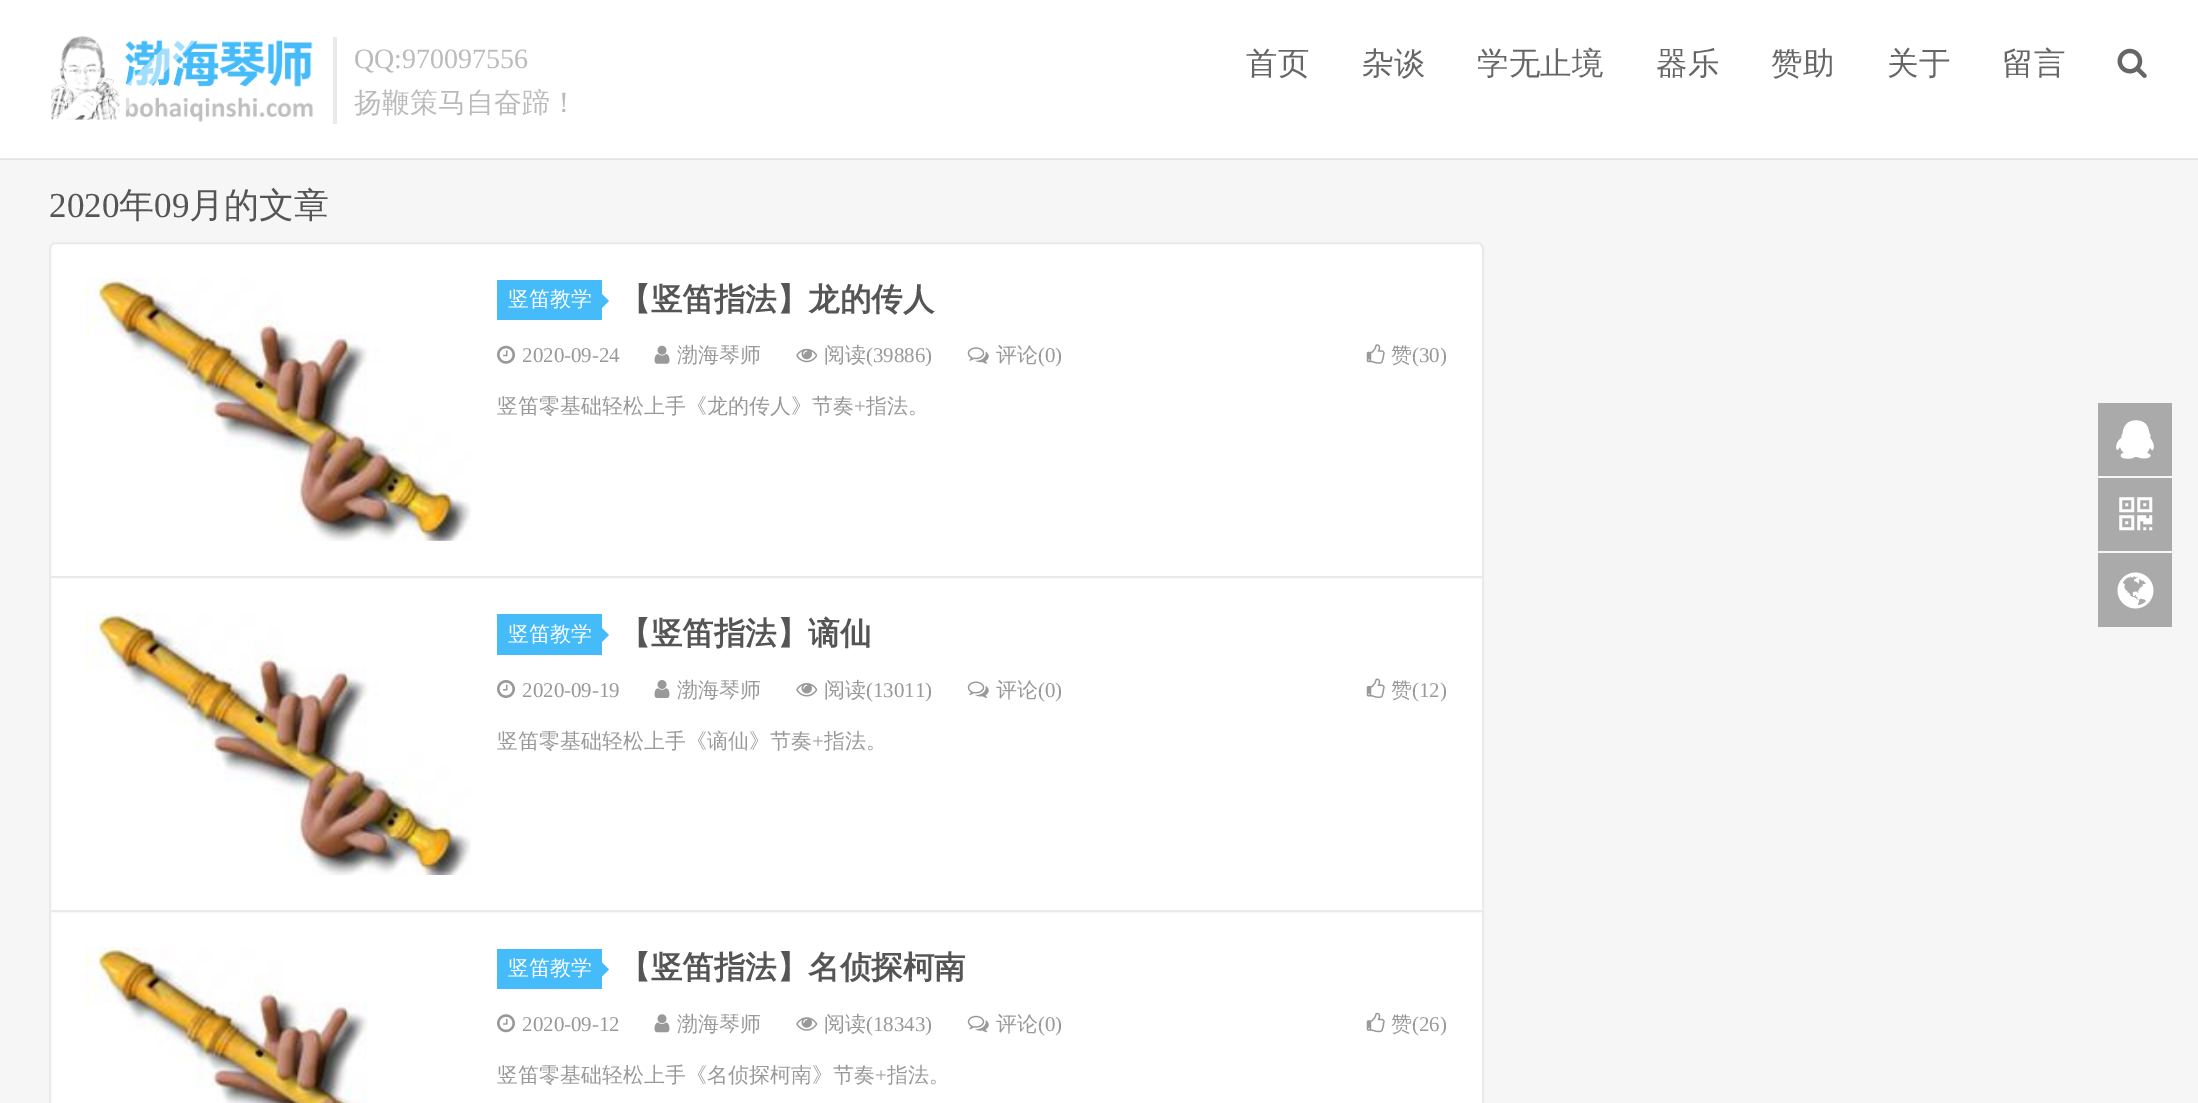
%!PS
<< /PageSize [2198 1103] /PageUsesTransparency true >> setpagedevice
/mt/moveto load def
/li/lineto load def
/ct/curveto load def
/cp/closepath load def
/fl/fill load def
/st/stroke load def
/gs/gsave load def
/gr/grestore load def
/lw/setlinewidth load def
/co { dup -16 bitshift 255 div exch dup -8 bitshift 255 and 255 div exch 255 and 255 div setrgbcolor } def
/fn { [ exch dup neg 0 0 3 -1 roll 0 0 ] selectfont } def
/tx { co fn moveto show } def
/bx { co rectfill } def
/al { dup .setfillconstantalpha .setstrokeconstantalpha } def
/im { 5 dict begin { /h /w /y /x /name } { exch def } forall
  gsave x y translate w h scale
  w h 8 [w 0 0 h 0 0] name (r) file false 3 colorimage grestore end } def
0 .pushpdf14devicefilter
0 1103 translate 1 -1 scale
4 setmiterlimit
0 0 2198 1103 16#F6F6F6 bx
0 0 2198 159 16#FFFFFF bx
0.08 al
0 158 2198 2 16#000000 bx
1 al
(media/1.raw) 51 35 262 87 im
gs
49 35 266 88 rectclip
0.5 al
16#FFFFFF co
81 130 mt 267 -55 li 279 -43 li 94 143 li cp fl
gr
333 37 4 87 16#EAEAEA bx
(media/2.raw) 2117 48 30 30 im
16#FFFFFF co
56 243 mt 1477 243 li 1480.5 243 1483 245.5 1483 249 ct 1483 577 li 50 577 li 50 249 li 50 245.5 52.5 243 56 243 ct cp gs fl gr
16#EAEAEA co
2 lw
st
(media/3.raw) 85 278 386 263 im
497 280 105 40 16#45BCF9 bx
602 308 mt 602 294 li 609 301 li cp fl
(media/4.raw) 497 345 18 19 im
(media/5.raw) 654 345 16 19 im
(media/6.raw) 796 348 22 15 im
(media/7.raw) 967 347 22 17 im
(media/8.raw) 1366 344 19 20 im
16#FFFFFF co
50 577 mt 1483 577 li 1483 911 li 50 911 li cp gs fl gr
16#EAEAEA co
st
(media/9.raw) 85 612 386 263 im
497 614 105 41 16#45BCF9 bx
602 642 mt 602 628 li 609 635 li cp fl
(media/10.raw) 497 680 18 18 im
(media/11.raw) 654 680 16 18 im
(media/12.raw) 796 683 22 14 im
(media/13.raw) 967 681 22 17 im
(media/14.raw) 1366 678 19 20 im
16#FFFFFF co
50 911 mt 1483 911 li 1483 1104 li 50 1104 li cp gs fl gr
16#EAEAEA co
st
(media/15.raw) 85 946 283 157 im
497 949 105 40 16#45BCF9 bx
602 976.5 mt 602 962.5 li 609 969.5 li cp fl
(media/16.raw) 497 1014 18 19 im
(media/17.raw) 654 1014 16 19 im
(media/18.raw) 796 1017 22 14 im
(media/19.raw) 967 1015 22 18 im
(media/20.raw) 1366 1012 19 21 im
2098 403 74 73 16#AAAAAA bx
(media/21.raw) 2116 420 38 39 im
2098 478 74 73 16#AAAAAA bx
(media/22.raw) 2119 497 34 34 im
2098 553 74 74 16#AAAAAA bx
(media/23.raw) 2117 572 37 37 im
(QQ:970097556) 354 68 /LiberationSerif-Regular 28 16#BBBBBB tx
(扬鞭策马自奋蹄！) 354 112 /WenQuanYiZenHei-Medium 28 16#BBBBBB tx
(首页) 1246 74 /WenQuanYiZenHei-Medium 31.5 16#666666 tx
(杂谈) 1362 74 /WenQuanYiZenHei-Medium 31.5 16#666666 tx
(学无止境) 1477 74 /WenQuanYiZenHei-Medium 31.5 16#666666 tx
(器乐) 1656 74 /WenQuanYiZenHei-Medium 31.5 16#666666 tx
(赞助) 1771 74 /WenQuanYiZenHei-Medium 31.5 16#666666 tx
(关于) 1887 74 /WenQuanYiZenHei-Medium 31.5 16#666666 tx
(留言) 2002 74 /WenQuanYiZenHei-Medium 31.5 16#666666 tx
(2020) 49 217 /LiberationSerif-Regular 35 16#555555 tx
(年) 119 217 /WenQuanYiZenHei-Medium 35 16#555555 tx
(09) 154 217 /LiberationSerif-Regular 35 16#555555 tx
(月的文章) 189 217 /WenQuanYiZenHei-Medium 35 16#555555 tx
(竖笛教学) 508 306 /WenQuanYiZenHei-Medium 21 16#FFFFFF tx
(【竖笛指法】龙的传人) 619 310 /WenQuanYiZenHei-Bold 31.5 16#555555 tx
(2020-09-24) 522 362 /LiberationSerif-Regular 21 16#999999 tx
(渤海琴师) 677 362 /WenQuanYiZenHei-Medium 21 16#999999 tx
(阅读) 824 362 /WenQuanYiZenHei-Medium 21 16#999999 tx
(\(39886\)) 866 362 /LiberationSerif-Regular 21 16#999999 tx
(评论) 996 362 /WenQuanYiZenHei-Medium 21 16#999999 tx
(\(0\)) 1038 362 /LiberationSerif-Regular 21 16#999999 tx
(赞) 1391 362 /WenQuanYiZenHei-Medium 21 16#999999 tx
(\(30\)) 1412 362 /LiberationSerif-Regular 21 16#999999 tx
(竖笛零基础轻松上手《龙的传人》节奏) 497 413 /WenQuanYiZenHei-Medium 21 16#999999 tx
(+) 854 413 /LiberationSerif-Regular 21 16#999999 tx
(指法。) 866 413 /WenQuanYiZenHei-Medium 21 16#999999 tx
(竖笛教学) 508 641 /WenQuanYiZenHei-Medium 21 16#FFFFFF tx
(【竖笛指法】谪仙) 619 644 /WenQuanYiZenHei-Bold 31.5 16#555555 tx
(2020-09-19) 522 697 /LiberationSerif-Regular 21 16#999999 tx
(渤海琴师) 677 697 /WenQuanYiZenHei-Medium 21 16#999999 tx
(阅读) 824 697 /WenQuanYiZenHei-Medium 21 16#999999 tx
(\(13011\)) 866 697 /LiberationSerif-Regular 21 16#999999 tx
(评论) 996 697 /WenQuanYiZenHei-Medium 21 16#999999 tx
(\(0\)) 1038 697 /LiberationSerif-Regular 21 16#999999 tx
(赞) 1391 697 /WenQuanYiZenHei-Medium 21 16#999999 tx
(\(12\)) 1412 697 /LiberationSerif-Regular 21 16#999999 tx
(竖笛零基础轻松上手《谪仙》节奏) 497 748 /WenQuanYiZenHei-Medium 21 16#999999 tx
(+) 812 748 /LiberationSerif-Regular 21 16#999999 tx
(指法。) 824 748 /WenQuanYiZenHei-Medium 21 16#999999 tx
(竖笛教学) 508 975 /WenQuanYiZenHei-Medium 21 16#FFFFFF tx
(【竖笛指法】名侦探柯南) 619 978 /WenQuanYiZenHei-Bold 31.5 16#555555 tx
(2020-09-12) 522 1031 /LiberationSerif-Regular 21 16#999999 tx
(渤海琴师) 677 1031 /WenQuanYiZenHei-Medium 21 16#999999 tx
(阅读) 824 1031 /WenQuanYiZenHei-Medium 21 16#999999 tx
(\(18343\)) 866 1031 /LiberationSerif-Regular 21 16#999999 tx
(评论) 996 1031 /WenQuanYiZenHei-Medium 21 16#999999 tx
(\(0\)) 1038 1031 /LiberationSerif-Regular 21 16#999999 tx
(赞) 1391 1031 /WenQuanYiZenHei-Medium 21 16#999999 tx
(\(26\)) 1412 1031 /LiberationSerif-Regular 21 16#999999 tx
(竖笛零基础轻松上手《名侦探柯南》节奏) 497 1082 /WenQuanYiZenHei-Medium 21 16#999999 tx
(+) 875 1082 /LiberationSerif-Regular 21 16#999999 tx
(指法。) 887 1082 /WenQuanYiZenHei-Medium 21 16#999999 tx
.poppdf14devicefilter showpage
